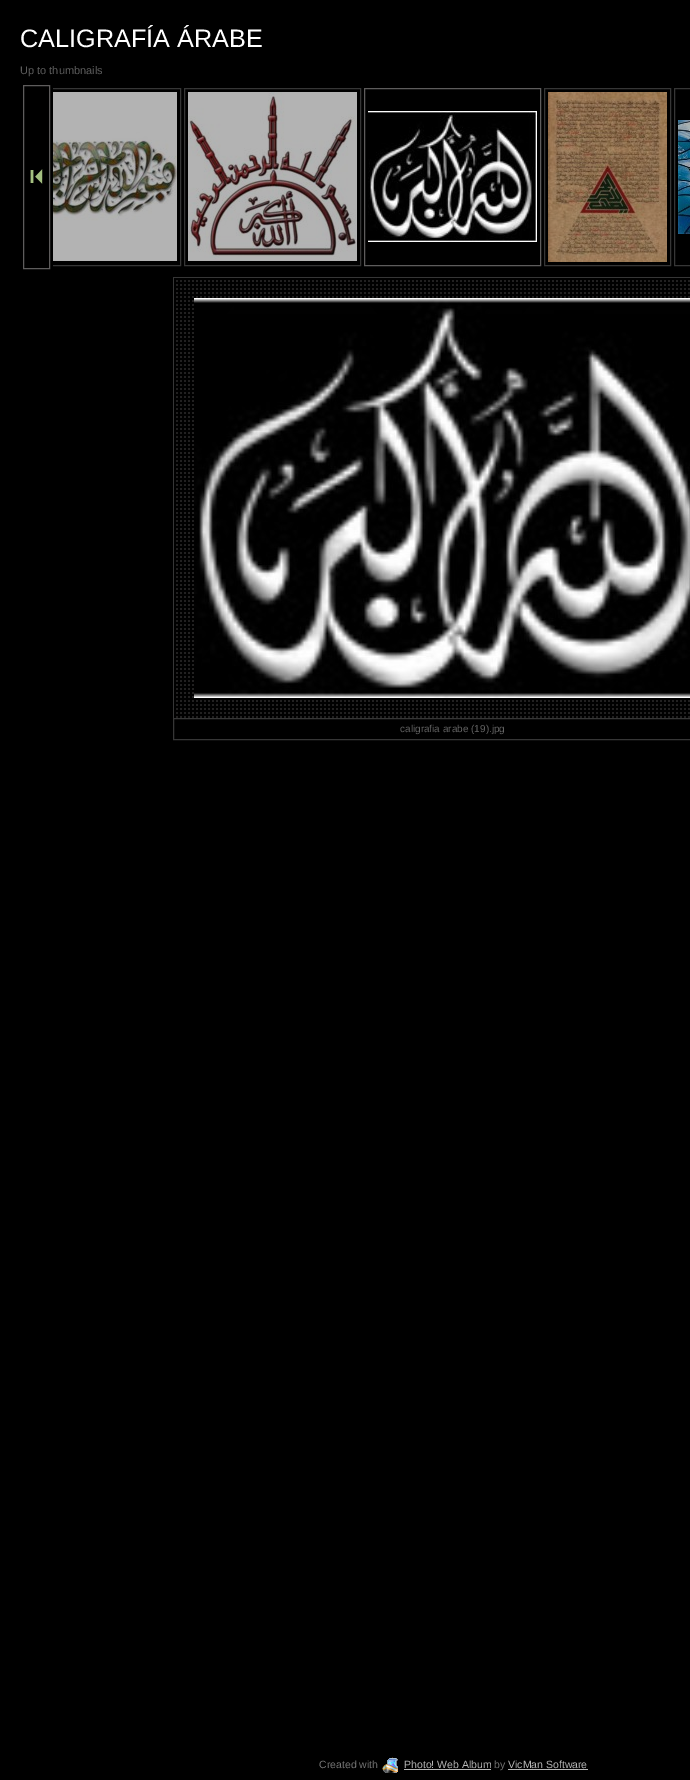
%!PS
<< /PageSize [690 1780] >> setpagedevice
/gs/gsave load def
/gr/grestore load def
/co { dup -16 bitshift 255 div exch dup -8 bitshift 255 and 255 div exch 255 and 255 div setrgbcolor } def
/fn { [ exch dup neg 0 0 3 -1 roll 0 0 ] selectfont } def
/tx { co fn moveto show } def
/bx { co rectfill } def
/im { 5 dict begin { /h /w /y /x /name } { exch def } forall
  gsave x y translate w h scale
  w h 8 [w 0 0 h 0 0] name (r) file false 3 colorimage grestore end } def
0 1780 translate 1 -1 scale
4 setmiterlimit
0 0 690 1780 16#000000 bx
16#5E5C5C co
23.5 85.5 26 183 rectstroke
(media/1.raw) 30 169 13 15 im
gs
53 85 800 184 rectclip
16#363636 co
4.5 88.5 176 177 rectstroke
gr
(media/2.raw) 53 92 124 169 im
16#363636 co
184.5 88.5 176 177 rectstroke
(media/3.raw) 188 92 169 169 im
16#5E5C5C co
364.5 88.5 176 177 rectstroke
(media/4.raw) 368 111 169 131 im
16#363636 co
544.5 88.5 126 177 rectstroke
(media/5.raw) 548 92 119 170 im
674.5 88.5 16 177 rectstroke
(media/6.raw) 678 120 12 114 im
(media/7.raw) 174 278 516 440 im
173 277 517 1 16#363636 bx
173 277 1 441 16#363636 bx
(media/8.raw) 194 298 496 400 im
173.5 718.5 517 21 rectstroke
(media/9.raw) 382 1757 16 16 im
404 1769 87 1 16#B7B7B7 bx
508 1769 80 1 16#B7B7B7 bx
(CALIGRAFÍA ÁRABE) 20 47 /LiberationSans-Regular 25.25 16#FFFFFF tx
(Up to thumbnails) 20 74 /LiberationSans-Regular 11 16#5D5D5D tx
(caligrafia arabe \(19\).jpg) 400 732 /LiberationSans-Regular 10 16#646464 tx
(Created with) 319 1768 /LiberationSans-Regular 10.5 16#747474 tx
(Photo! Web Album) 404 1768 /LiberationSans-Regular 10.5 16#B7B7B7 tx
(by) 494 1768 /LiberationSans-Regular 10.5 16#747474 tx
(VicMan Software) 508 1768 /LiberationSans-Regular 10.5 16#B7B7B7 tx
showpage
